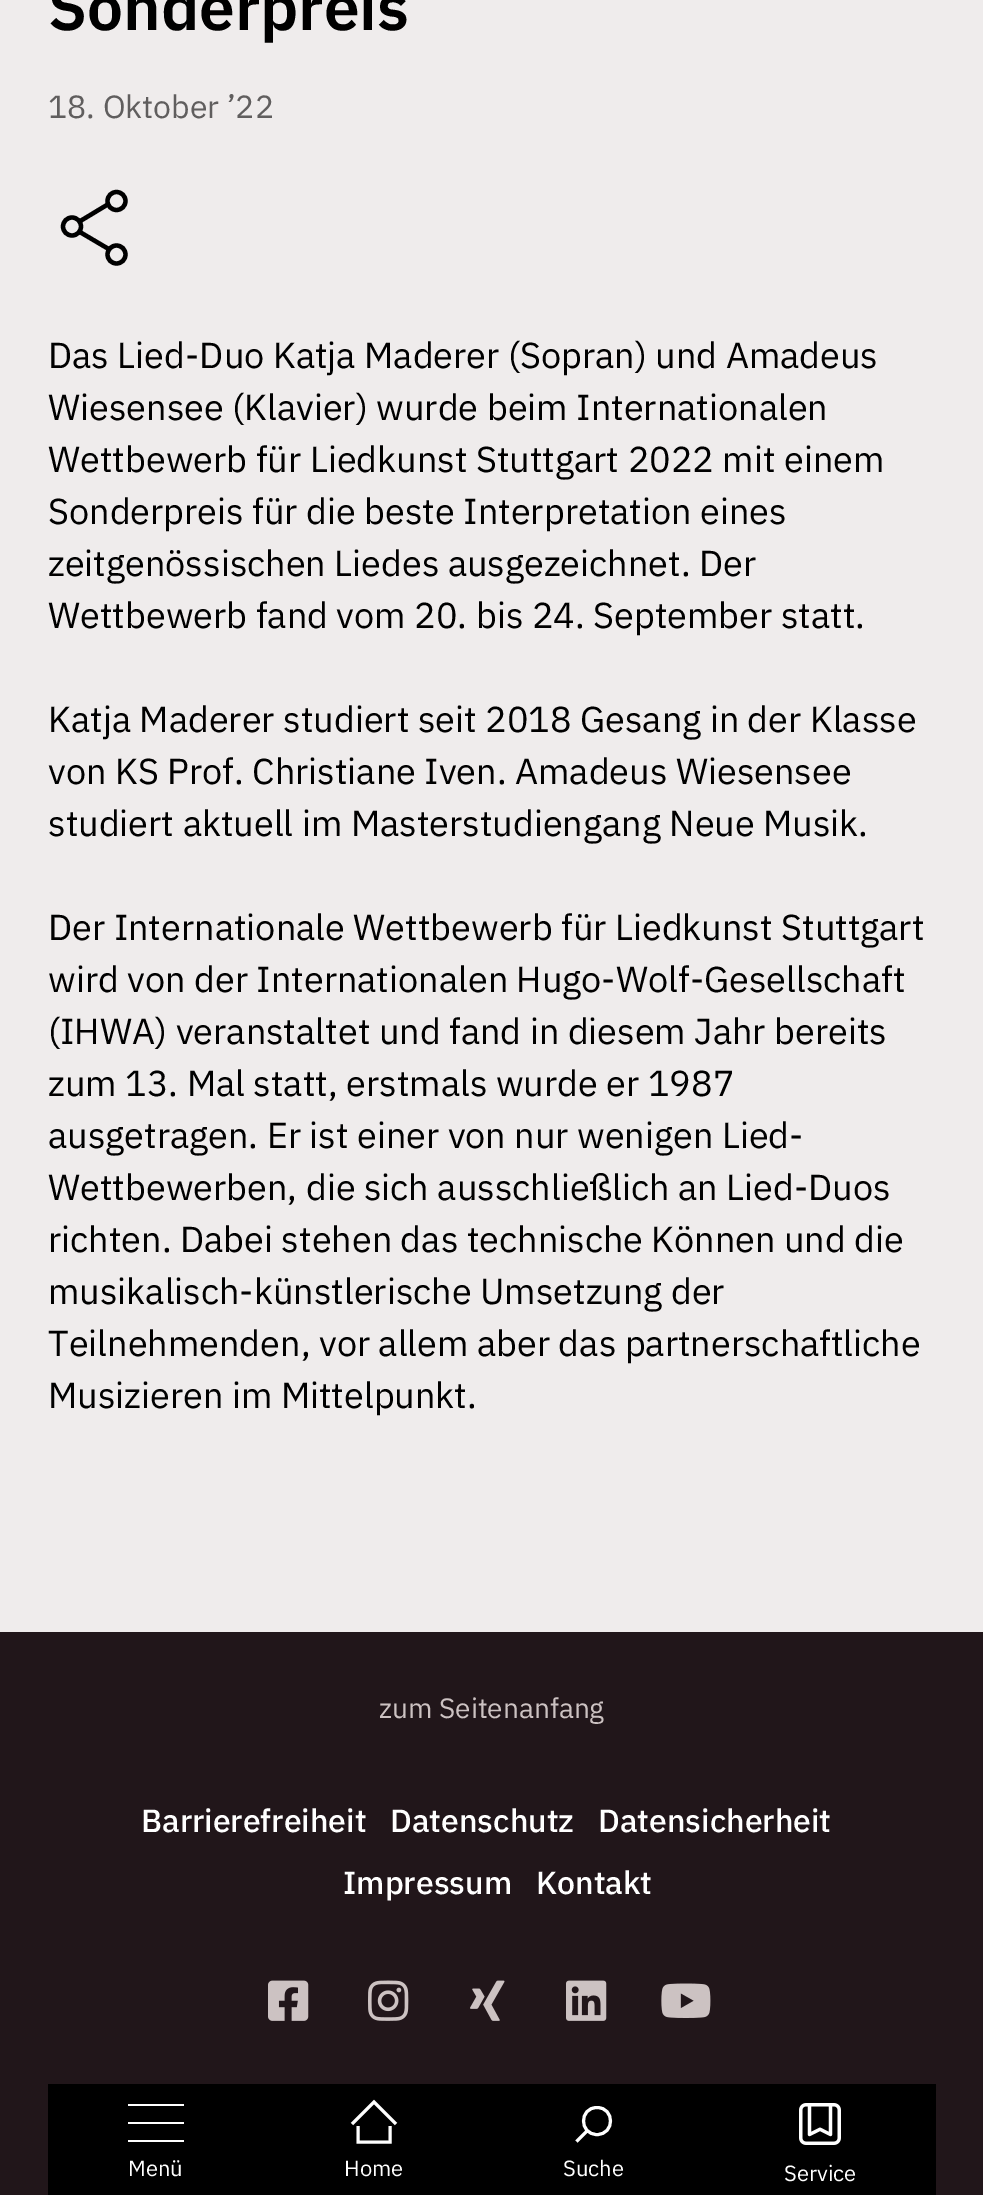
%!PS
<< /PageSize [983 2195] >> setpagedevice
/mt/moveto load def
/li/lineto load def
/ct/curveto load def
/cp/closepath load def
/st/stroke load def
/lw/setlinewidth load def
/co { dup -16 bitshift 255 div exch dup -8 bitshift 255 and 255 div exch 255 and 255 div setrgbcolor } def
/fn { [ exch dup neg 0 0 3 -1 roll 0 0 ] selectfont } def
/tx { co fn moveto show } def
/bx { co rectfill } def
/ci { newpath 0 360 arc closepath } def
/im { 5 dict begin { /h /w /y /x /name } { exch def } forall
  gsave x y translate w h scale
  w h 8 [w 0 0 h 0 0] name (r) file false 3 colorimage grestore end } def
0 2195 translate 1 -1 scale
4 setmiterlimit
0 0 983 2195 16#EFECEC bx
16#000000 co
4.3 lw
108.5 204 mt 79.5 221.5 li 79 231.5 mt 109.5 249.5 li st
116.5 201 9 ci st
72 226.5 9 ci st
116.5 254.5 9 ci st
0 1632 983 563 16#21161A bx
(media/1.raw) 268 1980 41 41 im
(media/2.raw) 368 1980 41 41 im
(media/3.raw) 470 1980 35 41 im
(media/4.raw) 566 1980 41 41 im
(media/5.raw) 661 1983 50 35 im
48 2084 888 111 16#000000 bx
128 2104 56 2 16#FFFFFF bx
128 2122 56 2 16#FFFFFF bx
128 2140 56 2 16#FFFFFF bx
3 lw
390 2126 mt 390 2142 li 358 2142 li 358 2126 li 352 2124 mt 374 2102 li 396 2124 li st
597 2107.5 mt 579 2107.5 579 2134.5 597 2134.5 ct 615 2134.5 615 2107.5 597 2107.5 ct cp 587 2131 mt 576.5 2141.5 li st
(media/6.raw) 799 2103 42 42 im
(Sonderpreis) 48 30 /IBMPlexSans-SemiBold 64 16#000000 tx
(18. Oktober ’22) 48 118 /IBMPlexSans-Regular 32 16#605E5E tx
(Das Lied-Duo Katja Maderer \(Sopran\) und Amadeus) 48 368 /IBMPlexSans-Regular 36 16#000000 tx
(Wiesensee \(Klavier\) wurde beim Internationalen) 48 420 /IBMPlexSans-Regular 36 16#000000 tx
(Wettbewerb für Liedkunst Stuttgart 2022 mit einem) 48 472 /IBMPlexSans-Regular 36 16#000000 tx
(Sonderpreis für die beste Interpretation eines) 48 524 /IBMPlexSans-Regular 36 16#000000 tx
(zeitgenössischen Liedes ausgezeichnet. Der) 48 576 /IBMPlexSans-Regular 36 16#000000 tx
(Wettbewerb fand vom 20. bis 24. September statt.) 48 628 /IBMPlexSans-Regular 36 16#000000 tx
(Katja Maderer studiert seit 2018 Gesang in der Klasse) 48 732 /IBMPlexSans-Regular 36 16#000000 tx
(von KS Prof. Christiane Iven. Amadeus Wiesensee) 48 784 /IBMPlexSans-Regular 36 16#000000 tx
(studiert aktuell im Masterstudiengang Neue Musik.) 48 836 /IBMPlexSans-Regular 36 16#000000 tx
(Der Internationale Wettbewerb für Liedkunst Stuttgart) 48 940 /IBMPlexSans-Regular 36 16#000000 tx
(wird von der Internationalen Hugo-Wolf-Gesellschaft) 48 992 /IBMPlexSans-Regular 36 16#000000 tx
(\(IHWA\) veranstaltet und fand in diesem Jahr bereits) 48 1044 /IBMPlexSans-Regular 36 16#000000 tx
(zum 13. Mal statt, erstmals wurde er 1987) 48 1096 /IBMPlexSans-Regular 36 16#000000 tx
(ausgetragen. Er ist einer von nur wenigen Lied-) 48 1148 /IBMPlexSans-Regular 36 16#000000 tx
(Wettbewerben, die sich ausschließlich an Lied-Duos) 48 1200 /IBMPlexSans-Regular 36 16#000000 tx
(richten. Dabei stehen das technische Können und die) 48 1252 /IBMPlexSans-Regular 36 16#000000 tx
(musikalisch-künstlerische Umsetzung der) 48 1304 /IBMPlexSans-Regular 36 16#000000 tx
(Teilnehmenden, vor allem aber das partnerschaftliche) 48 1356 /IBMPlexSans-Regular 36 16#000000 tx
(Musizieren im Mittelpunkt.) 48 1408 /IBMPlexSans-Regular 36 16#000000 tx
(zum Seitenanfang) 379 1718 /IBMPlexSans-Regular 28 16#CCC2C2 tx
(Barrierefreiheit) 141 1832 /IBMPlexSans-Medium 32 16#FFFFFF tx
(Datenschutz) 390 1832 /IBMPlexSans-Medium 32 16#FFFFFF tx
(Datensicherheit) 598 1832 /IBMPlexSans-Medium 32 16#FFFFFF tx
(Impressum) 343 1894 /IBMPlexSans-Medium 32 16#FFFFFF tx
(Kontakt) 536 1894 /IBMPlexSans-Medium 32 16#FFFFFF tx
(Menü) 128 2176 /IBMPlexSans-Regular 22 16#FFFFFF tx
(Home) 344 2176 /IBMPlexSans-Regular 22 16#FFFFFF tx
(Suche) 563 2176 /IBMPlexSans-Regular 22 16#FFFFFF tx
(Service) 784 2181 /IBMPlexSans-Regular 22 16#FFFFFF tx
showpage
